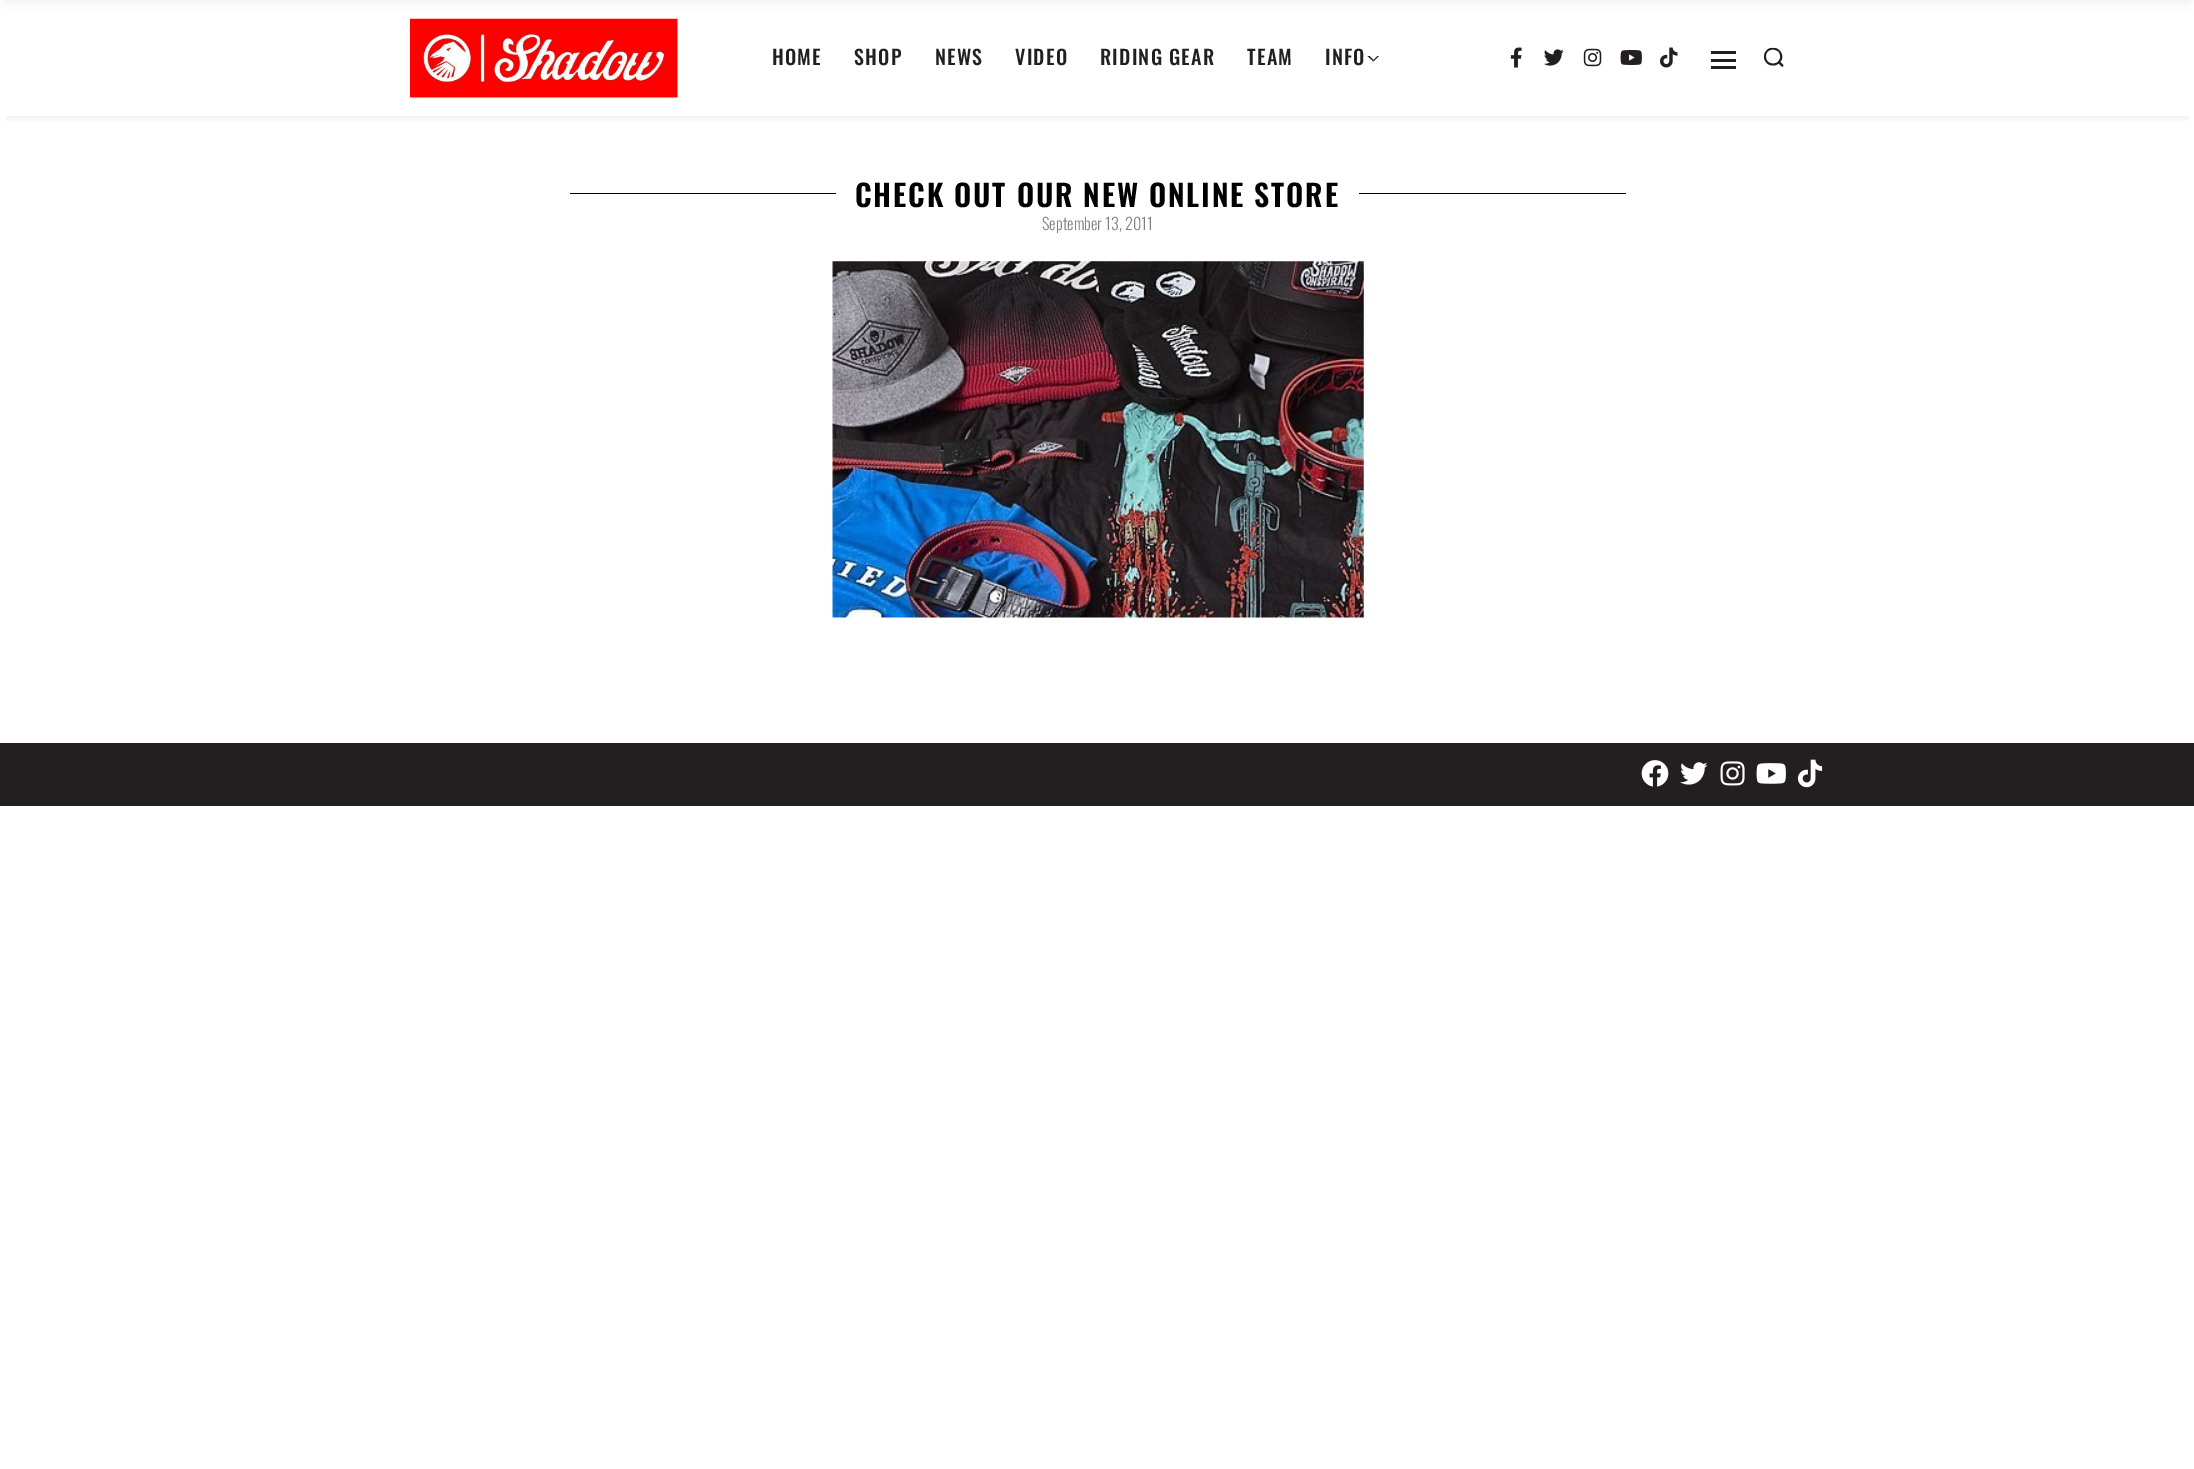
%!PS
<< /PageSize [2194 1469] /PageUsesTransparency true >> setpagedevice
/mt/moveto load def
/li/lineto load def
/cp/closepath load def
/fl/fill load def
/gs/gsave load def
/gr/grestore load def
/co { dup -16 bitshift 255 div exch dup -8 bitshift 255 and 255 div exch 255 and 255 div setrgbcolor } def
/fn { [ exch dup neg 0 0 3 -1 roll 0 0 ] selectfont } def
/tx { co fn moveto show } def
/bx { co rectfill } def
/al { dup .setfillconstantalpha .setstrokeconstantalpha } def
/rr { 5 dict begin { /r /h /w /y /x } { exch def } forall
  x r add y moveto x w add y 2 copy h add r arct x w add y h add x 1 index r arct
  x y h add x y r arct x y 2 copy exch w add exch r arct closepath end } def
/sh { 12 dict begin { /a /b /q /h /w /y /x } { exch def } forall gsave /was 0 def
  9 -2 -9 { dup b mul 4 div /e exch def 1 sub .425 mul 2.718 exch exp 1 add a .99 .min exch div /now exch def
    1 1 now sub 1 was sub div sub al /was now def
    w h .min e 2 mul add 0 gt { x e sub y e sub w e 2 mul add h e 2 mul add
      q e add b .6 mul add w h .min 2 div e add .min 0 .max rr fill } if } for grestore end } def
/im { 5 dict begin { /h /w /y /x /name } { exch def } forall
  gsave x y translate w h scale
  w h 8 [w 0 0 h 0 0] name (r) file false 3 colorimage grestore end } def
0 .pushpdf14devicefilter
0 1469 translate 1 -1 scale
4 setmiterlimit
0 0 2194 1469 16#FFFFFF bx
gs
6 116 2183 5 rectclip
16#000000 co
6 13 2183 103 0 6 .1 sh
gr
(media/1.raw) 410 18 268 80 im
16#000000 co
6 -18 2183 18 0 6 .1 sh
16#231F20 co
1379 56 mt 1373.5 61.5 li 1373.5 60 li 1377.5 56 li cp fl
1373.5 61.5 mt 1367.5 56 li 1369.5 56 li 1373.5 60 li cp fl
(media/2.raw) 1510 47 12 21 im
(media/3.raw) 1544 49 20 17 im
(media/4.raw) 1583 48 19 19 im
(media/5.raw) 1620 50 22 15 im
(media/6.raw) 1660 47 18 21 im
1711 51 25 3 16#231F20 bx
1711 59 25 3 16#231F20 bx
1711 66 25 3 16#231F20 bx
(media/7.raw) 1764 47 20 20 im
570 193 266 1 16#000000 bx
1359 193 267 1 16#000000 bx
(media/8.raw) 832 261 532 357 im
0 743 2194 63 16#231F20 bx
(media/9.raw) 1641 760 28 27 im
(media/10.raw) 1680 762 28 23 im
(media/11.raw) 1720 761 25 25 im
(media/12.raw) 1756 763 30 21 im
(media/13.raw) 1798 759 25 29 im
/Oswald-Medium 20 fn
772 65 mt 1.25 0 (HOME) ashow
854 65 mt 1.25 0 (SHOP) ashow
935 65 mt 1.25 0 (NEWS) ashow
1015 65 mt 1.25 0 (VIDEO) ashow
1100 65 mt 1.25 0 (RIDING GEAR) ashow
1247 65 mt 1.25 0 (TEAM) ashow
1325 65 mt 1.25 0 (INFO) ashow
/Oswald-SemiBold 30 fn
16#000000 co
855 207 mt 1.8 0 (CHECK OUT OUR NEW ONLINE STORE) ashow
(September 13, 2011) 1042 230 /Oswald-Light 16.25 16#808080 tx
.poppdf14devicefilter showpage
